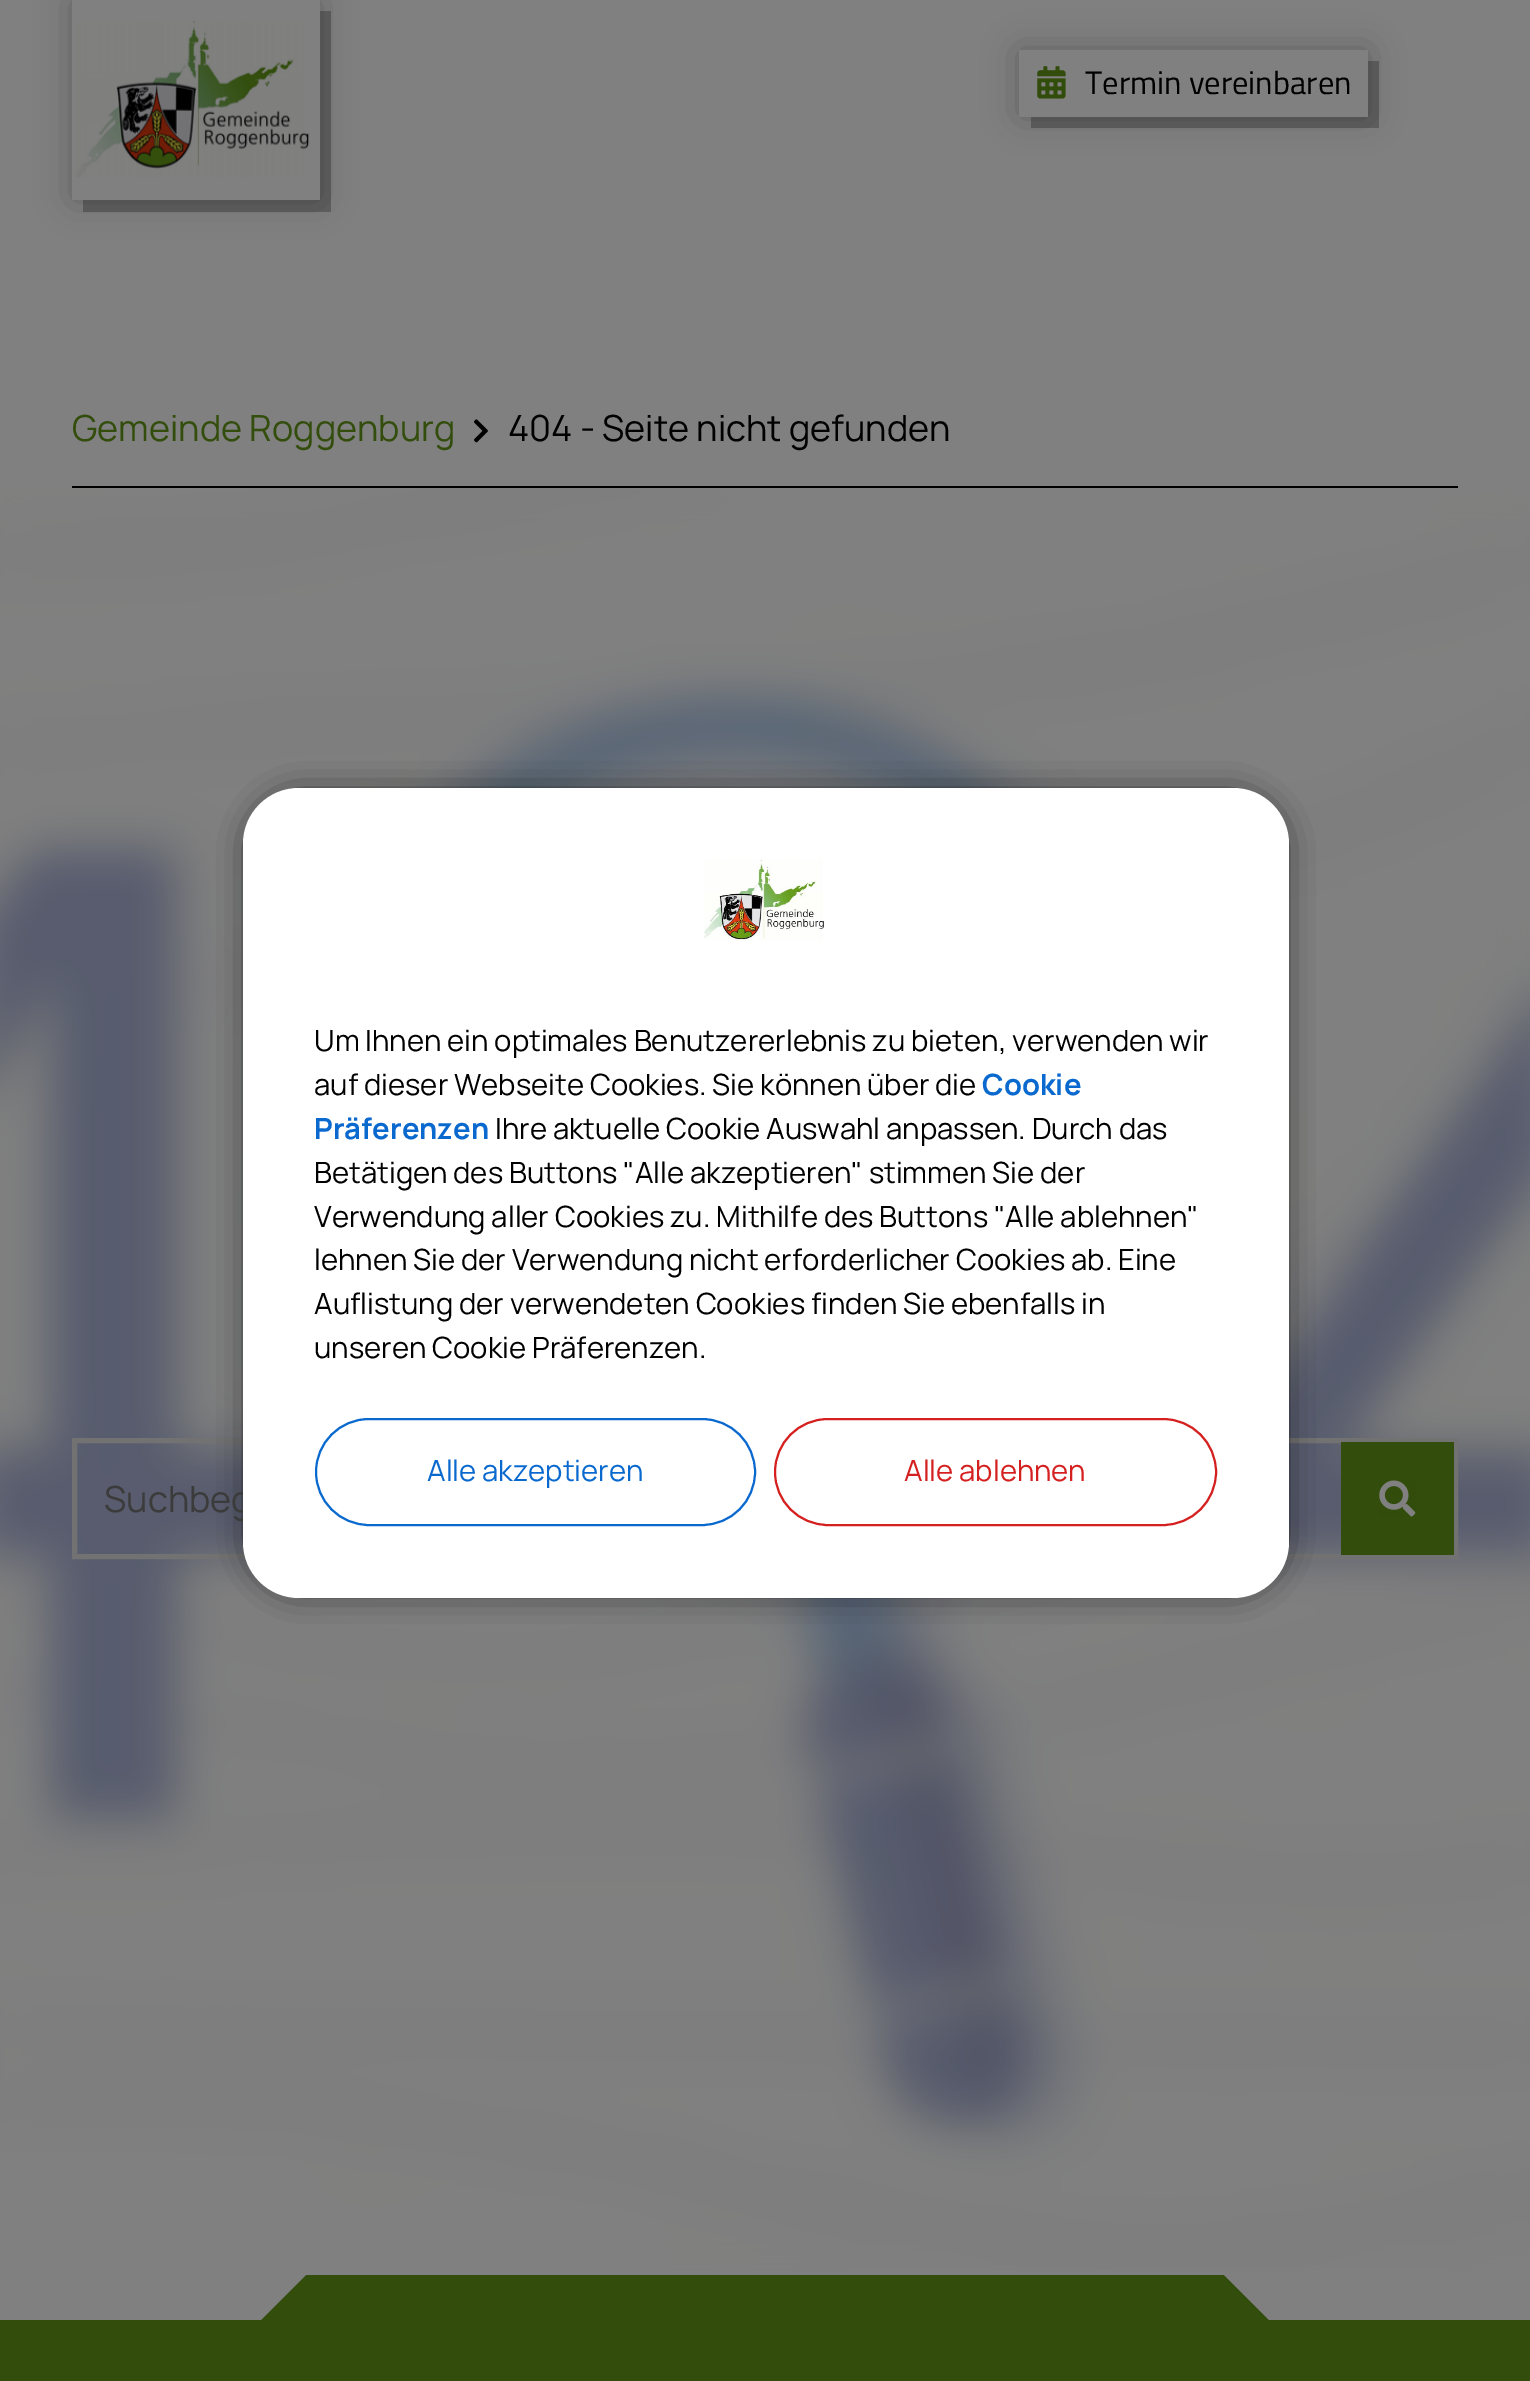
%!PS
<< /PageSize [1530 2381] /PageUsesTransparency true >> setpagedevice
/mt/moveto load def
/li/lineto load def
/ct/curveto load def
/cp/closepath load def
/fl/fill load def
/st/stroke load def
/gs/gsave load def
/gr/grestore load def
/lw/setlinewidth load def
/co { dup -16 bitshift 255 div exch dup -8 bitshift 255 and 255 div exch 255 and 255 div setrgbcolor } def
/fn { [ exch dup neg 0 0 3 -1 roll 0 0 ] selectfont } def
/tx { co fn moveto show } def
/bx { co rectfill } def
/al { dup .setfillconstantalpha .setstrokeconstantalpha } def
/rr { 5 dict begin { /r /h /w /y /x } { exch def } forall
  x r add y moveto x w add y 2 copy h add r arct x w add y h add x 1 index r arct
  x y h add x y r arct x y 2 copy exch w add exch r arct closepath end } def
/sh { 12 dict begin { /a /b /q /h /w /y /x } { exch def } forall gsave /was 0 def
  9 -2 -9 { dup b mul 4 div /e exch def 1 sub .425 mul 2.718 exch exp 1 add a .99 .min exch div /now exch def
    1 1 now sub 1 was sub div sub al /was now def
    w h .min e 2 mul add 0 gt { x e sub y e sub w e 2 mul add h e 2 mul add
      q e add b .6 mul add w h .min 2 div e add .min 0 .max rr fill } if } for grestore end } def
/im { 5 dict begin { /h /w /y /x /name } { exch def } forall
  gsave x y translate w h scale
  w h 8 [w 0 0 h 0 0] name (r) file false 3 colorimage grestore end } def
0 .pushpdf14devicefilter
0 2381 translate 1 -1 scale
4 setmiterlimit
0 0 1530 2381 16#808080 bx
16#000000 co
72 0 248 200 0 18 .25 sh
0.25 al
83 200 mt 83 212 li 331 212 li 331 11 li 320 11 li 320 200 li cp fl
1 al
72 0 248 200 16#808080 bx
(media/1.raw) 76 20 234 158 im
16#000000 co
1019 50 349 67 0 18 .25 sh
0.25 al
1031 117 mt 1031 128 li 1379 128 li 1379 61 li 1368 61 li 1368 117 li cp fl
1 al
1019 50 349 67 16#808080 bx
(media/2.raw) 1037 66 29 33 im
72 486 1386 2 16#000000 bx
(media/3.raw) 474 419 14 24 im
(media/4.raw) 0 488 1530 1782 im
16#727272 co
5 lw
74.5 1440.5 1381 116 rectstroke
1341 1442 113 113 16#334D0C bx
(media/5.raw) 1379 1480 37 37 im
gs
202 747 mt 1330 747 li 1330 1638 li 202 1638 li cp 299 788 mt 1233 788 li 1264 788 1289 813 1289 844 ct 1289 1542 li 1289 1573 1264 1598 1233 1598 ct 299 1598 li 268 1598 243 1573 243 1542 ct 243 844 li 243 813 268 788 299 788 ct cp eoclip newpath
16#000000 co
254 799 1024 787 45 17 1 sh
gr
0 2275 1530 106 16#334D0C bx
16#808080 co
0 2275 mt 306 2275 li 261 2320 li 0 2320 li cp fl
1224 2275 mt 1530 2275 li 1530 2320 li 1269 2320 li cp fl
(Termin vereinbaren) 1085 94 /TitilliumWeb-Regular 32.5 16#000000 tx
(Gemeinde Roggenburg) 72 441 /Manrope-ExtraLight 36 16#334D0C tx
(404 - Seite nicht gefunden) 508 441 /Manrope-ExtraLight 36 16#000000 tx
(Suchbeg) 104 1512 /Manrope-ExtraLight 36 16#3B3B3B tx
16#FFFFFF co
243 788 1046 810 56 rr fl
(media/6.raw) 704 859 121 82 im
(Um Ihnen ein optimales Benutzererlebnis zu bieten, verwenden wir) 314 1051 /Manrope-ExtraLight 29.25 16#000000 tx
(auf dieser Webseite Cookies. Sie können über die) 314 1095 /Manrope-ExtraLight 29.25 16#000000 tx
(Cookie) 982 1095 /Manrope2-ExtraLight 29.25 16#0A69CE tx
(Präferenzen) 314 1139 /Manrope2-ExtraLight 29.25 16#0A69CE tx
(Ihre aktuelle Cookie Auswahl anpassen. Durch das) 495 1139 /Manrope-ExtraLight 29.25 16#000000 tx
(Betätigen des Buttons "Alle akzeptieren" stimmen Sie der) 314 1183 /Manrope-ExtraLight 29.25 16#000000 tx
(Verwendung aller Cookies zu. Mithilfe des Buttons "Alle ablehnen") 314 1227 /Manrope-ExtraLight 29.25 16#000000 tx
(lehnen Sie der Verwendung nicht erforderlicher Cookies ab. Eine) 314 1270 /Manrope-ExtraLight 29.25 16#000000 tx
(Auflistung der verwendeten Cookies finden Sie ebenfalls in) 314 1314 /Manrope-ExtraLight 29.25 16#000000 tx
(unseren Cookie Präferenzen.) 314 1358 /Manrope-ExtraLight 29.25 16#000000 tx
16#0A69CE co
2 lw
316 1419 439 106 53 rr st
(Alle akzeptieren) 427 1481 /Manrope-ExtraLight 29.25 16#0A69CE tx
16#D52020 co
775 1419 441 106 53 rr st
(Alle ablehnen) 904 1481 /Manrope-ExtraLight 29.25 16#D52020 tx
.poppdf14devicefilter showpage
